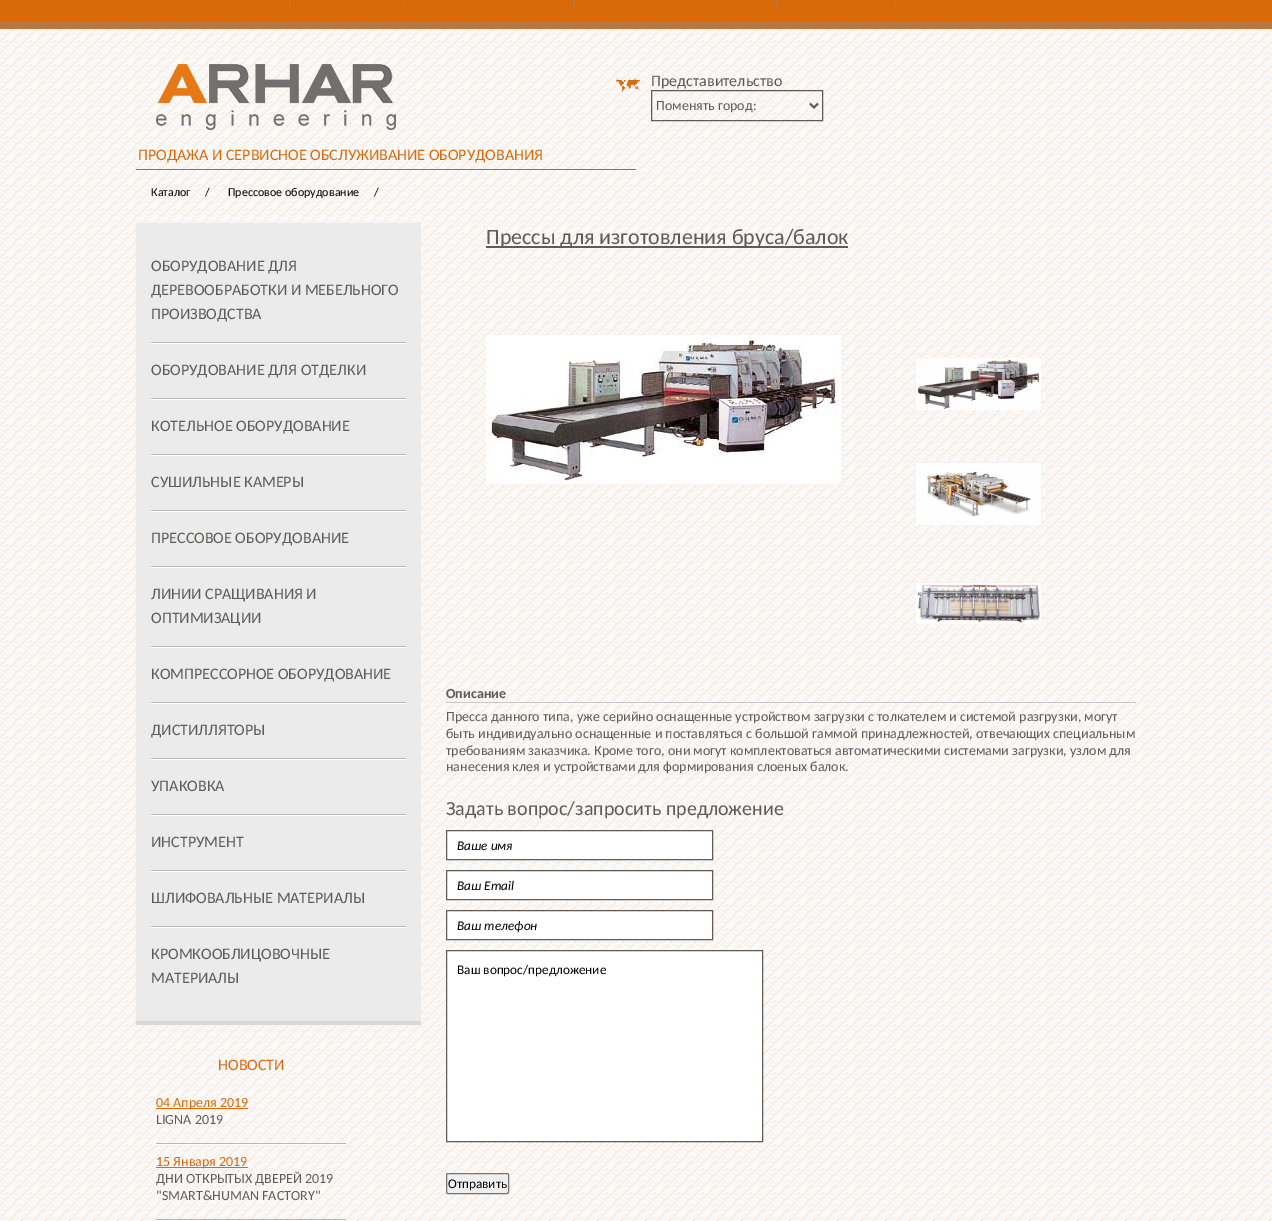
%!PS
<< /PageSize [1272 1221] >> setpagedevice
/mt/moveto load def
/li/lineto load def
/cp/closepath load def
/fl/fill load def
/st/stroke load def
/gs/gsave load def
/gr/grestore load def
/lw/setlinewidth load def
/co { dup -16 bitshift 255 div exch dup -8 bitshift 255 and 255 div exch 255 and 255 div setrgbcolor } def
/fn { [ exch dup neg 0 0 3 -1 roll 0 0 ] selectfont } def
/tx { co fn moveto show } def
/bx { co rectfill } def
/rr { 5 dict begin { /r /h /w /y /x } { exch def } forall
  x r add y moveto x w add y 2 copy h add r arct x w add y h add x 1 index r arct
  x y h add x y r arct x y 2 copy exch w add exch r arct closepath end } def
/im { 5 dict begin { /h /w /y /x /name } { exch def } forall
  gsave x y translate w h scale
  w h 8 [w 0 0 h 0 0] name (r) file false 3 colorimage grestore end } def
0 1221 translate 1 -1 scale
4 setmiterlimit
0 0 1272 1221 16#FFFFFF bx
(media/1.raw) 0 22 1272 1199 im
(media/2.raw) 0 0 1272 29 im
289 0 1 8 16#B67741 bx
403 0 1 8 16#B67741 bx
574 0 1 8 16#B67741 bx
776 0 1 8 16#B67741 bx
895 0 1 8 16#B67741 bx
(media/3.raw) 616 79 24 13 im
16#5E5B59 co
651.5 90.5 171 30 rectstroke
2 lw
810 103.5 mt 814 107.5 li 818 103.5 li st
(media/4.raw) 156 64 240 66 im
136 169 500 1 16#797776 bx
136 223 285 798 16#EBEBEB bx
136 1021 285 4 16#D9D9D9 bx
(media/5.raw) 151 342 255 2 im
(media/5.raw) 151 398 255 2 im
(media/5.raw) 151 454 255 2 im
(media/5.raw) 151 510 255 2 im
(media/5.raw) 151 566 255 2 im
(media/5.raw) 151 646 255 2 im
(media/5.raw) 151 702 255 2 im
(media/5.raw) 151 758 255 2 im
(media/5.raw) 151 814 255 2 im
(media/5.raw) 151 870 255 2 im
(media/5.raw) 151 926 255 2 im
156 1108 92 1 16#D96A09 bx
(media/6.raw) 156 1143 190 2 im
156 1167 92 1 16#D96A09 bx
(media/6.raw) 156 1219 190 2 im
486 246 362 2 16#5E5B59 bx
(media/7.raw) 486 335 355 149 im
(media/8.raw) 916 358 125 52 im
(media/9.raw) 916 463 125 62 im
(media/10.raw) 916 583 125 41 im
446 702 690 1 16#CAC9C9 bx
16#FFFFFF co
446.5 830.5 mt 712.5 830.5 li 712.5 859.5 li 446.5 859.5 li cp gs fl gr
16#5E5B59 co
1 lw
st
16#FFFFFF co
446.5 870.5 mt 712.5 870.5 li 712.5 899.5 li 446.5 899.5 li cp gs fl gr
16#5E5B59 co
st
16#FFFFFF co
446.5 910.5 mt 712.5 910.5 li 712.5 939.5 li 446.5 939.5 li cp gs fl gr
16#5E5B59 co
st
16#FFFFFF co
446.5 950.5 mt 762.5 950.5 li 762.5 1141.5 li 446.5 1141.5 li cp gs fl gr
16#5E5B59 co
st
16#EFEFEF co
446.5 1173.5 62 20 1.5 rr gs fl gr
16#767676 co
st
(Представительство) 651 86 /Carlito-Regular 16 16#5E5B59 tx
(Поменять город:) 656 110 /Carlito-Regular 14 16#5E5B59 tx
(ПРОДАЖА И СЕРВИСНОЕ ОБСЛУЖИВАНИЕ ОБОРУДОВАНИЯ) 138 160 /Carlito-Regular 16 16#D96A09 tx
(Каталог) 151 196 /Carlito-Regular 12 16#000000 tx
(/) 205 196 /Carlito-Regular 12 16#000000 tx
(Прессовое оборудование) 228 196 /Carlito-Regular 12 16#000000 tx
(/) 374 196 /Carlito-Regular 12 16#000000 tx
(ОБОРУДОВАНИЕ ДЛЯ) 151 271 /Carlito-Regular 16 16#5E5B59 tx
(ДЕРЕВООБРАБОТКИ И МЕБЕЛЬНОГО) 151 295 /Carlito-Regular 16 16#5E5B59 tx
(ПРОИЗВОДСТВА) 151 319 /Carlito-Regular 16 16#5E5B59 tx
(ОБОРУДОВАНИЕ ДЛЯ ОТДЕЛКИ) 151 375 /Carlito-Regular 16 16#5E5B59 tx
(КОТЕЛЬНОЕ ОБОРУДОВАНИЕ) 151 431 /Carlito-Regular 16 16#5E5B59 tx
(СУШИЛЬНЫЕ КАМЕРЫ) 151 487 /Carlito-Regular 16 16#5E5B59 tx
(ПРЕССОВОЕ ОБОРУДОВАНИЕ) 151 543 /Carlito-Regular 16 16#5E5B59 tx
(ЛИНИИ СРАЩИВАНИЯ И) 151 599 /Carlito-Regular 16 16#5E5B59 tx
(ОПТИМИЗАЦИИ) 151 623 /Carlito-Regular 16 16#5E5B59 tx
(КОМПРЕССОРНОЕ ОБОРУДОВАНИЕ) 151 679 /Carlito-Regular 16 16#5E5B59 tx
(ДИСТИЛЛЯТОРЫ) 151 735 /Carlito-Regular 16 16#5E5B59 tx
(УПАКОВКА) 151 791 /Carlito-Regular 16 16#5E5B59 tx
(ИНСТРУМЕНТ) 151 847 /Carlito-Regular 16 16#5E5B59 tx
(ШЛИФОВАЛЬНЫЕ МАТЕРИАЛЫ) 151 903 /Carlito-Regular 16 16#5E5B59 tx
(КРОМКООБЛИЦОВОЧНЫЕ) 151 959 /Carlito-Regular 16 16#5E5B59 tx
(МАТЕРИАЛЫ) 151 983 /Carlito-Regular 16 16#5E5B59 tx
(НОВОСТИ) 218 1070 /Carlito-Regular 16 16#D96A09 tx
(04 Апреля 2019) 156 1107 /Carlito-Regular 14 16#D96A09 tx
(LIGNA 2019) 156 1124 /Carlito-Regular 14 16#5E5B59 tx
(15 Января 2019) 156 1166 /Carlito-Regular 14 16#D96A09 tx
(ДНИ ОТКРЫТЫХ ДВЕРЕЙ 2019) 156 1183 /Carlito-Regular 14 16#5E5B59 tx
("SMART&HUMAN FACTORY") 156 1200 /Carlito-Regular 14 16#5E5B59 tx
(Прессы для изготовления бруса/балок) 486 244 /Carlito-Regular 22 16#5E5B59 tx
(Описание) 446 698 /Carlito-Bold 14 16#5E5B59 tx
(Пресса данного типа, уже серийно оснащенные устройством загрузки с толкателем и системой разгрузки, могут) 446 721 /Carlito-Regular 14 16#5E5B59 tx
(быть индивидуально оснащенные и поставляться с большой гаммой принадлежностей, отвечающих специальным) 446 738 /Carlito-Regular 14 16#5E5B59 tx
(требованиям заказчика. Кроме того, они могут комплектоваться автоматическими системами загрузки, узлом для) 446 755 /Carlito-Regular 14 16#5E5B59 tx
(нанесения клея и устройствами для формирования слоеных балок.) 446 771 /Carlito-Regular 14 16#5E5B59 tx
(Задать вопрос/запросить предложение) 446 815 /Carlito-Regular 20 16#5E5B59 tx
(Ваше имя) 457 850 /Carlito-Italic 13.25 16#000000 tx
(Ваш Email) 457 890 /Carlito-Italic 13.25 16#000000 tx
(Ваш телефон) 457 930 /Carlito-Italic 13.25 16#000000 tx
(Ваш вопрос/предложение) 457 974 /Carlito-Regular 13.25 16#000000 tx
(Отправить) 448 1188 /Carlito-Regular 13.25 16#000000 tx
showpage
